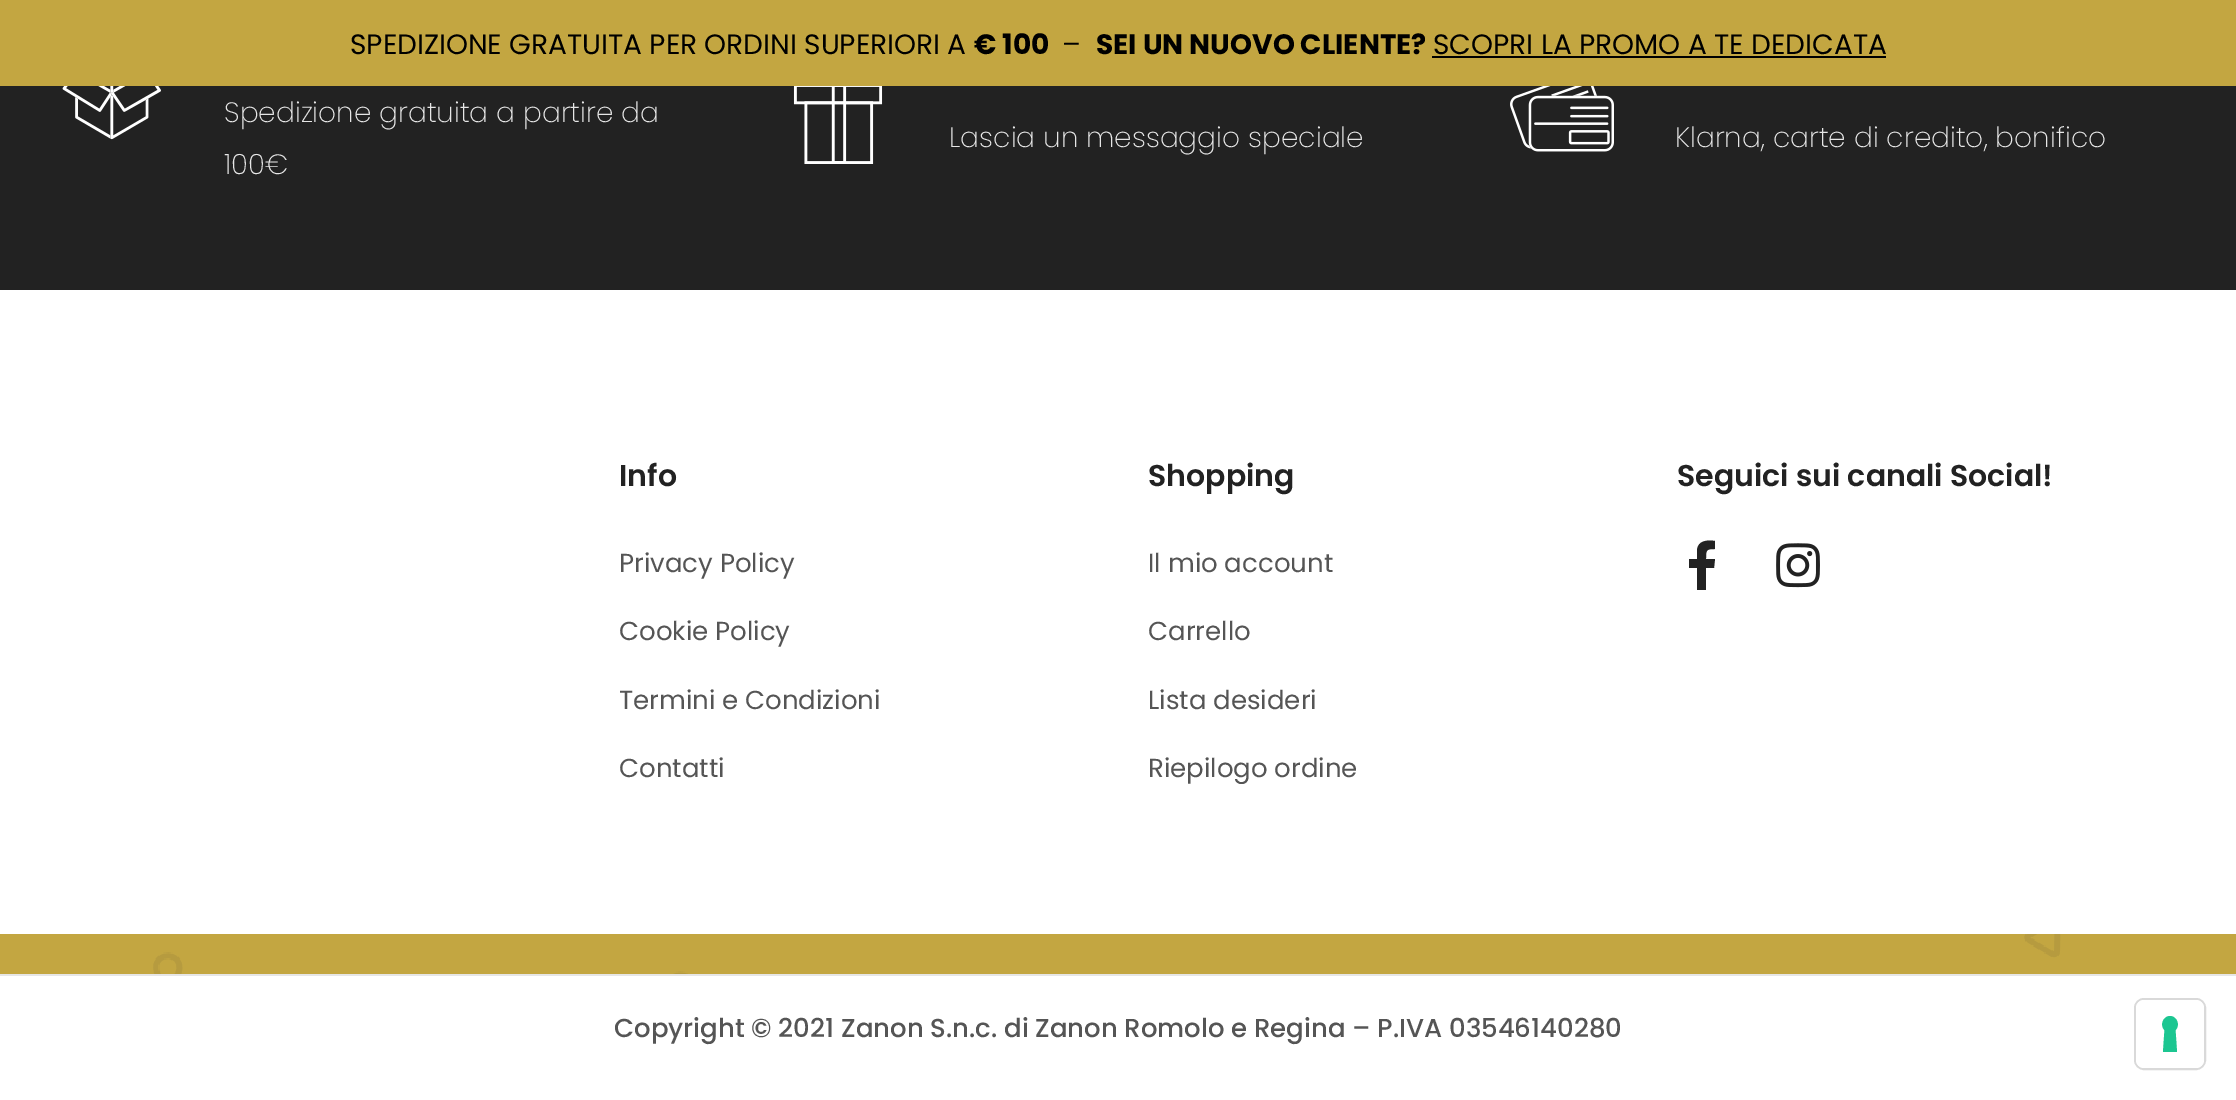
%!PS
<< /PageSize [2236 1100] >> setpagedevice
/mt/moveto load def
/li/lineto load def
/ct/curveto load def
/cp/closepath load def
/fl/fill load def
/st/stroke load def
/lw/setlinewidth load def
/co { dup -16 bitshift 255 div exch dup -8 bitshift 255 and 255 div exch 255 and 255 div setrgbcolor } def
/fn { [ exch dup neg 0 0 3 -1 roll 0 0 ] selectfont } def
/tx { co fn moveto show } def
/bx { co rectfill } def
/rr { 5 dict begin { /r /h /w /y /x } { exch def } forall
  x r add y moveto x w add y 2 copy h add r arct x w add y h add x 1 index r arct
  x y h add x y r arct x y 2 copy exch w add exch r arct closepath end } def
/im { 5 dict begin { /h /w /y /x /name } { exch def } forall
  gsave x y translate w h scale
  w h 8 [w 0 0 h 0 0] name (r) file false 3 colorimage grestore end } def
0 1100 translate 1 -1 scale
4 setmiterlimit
0 0 2236 1100 16#C3A641 bx
(media/1.raw) 153 934 1908 40 im
1432 56 454 2 16#000000 bx
0 86 2236 204 16#222222 bx
(media/2.raw) 62 86 99 54 im
(media/3.raw) 793 86 90 78 im
(media/4.raw) 1510 86 104 66 im
0 290 2236 644 16#FFFFFF bx
16#222222 co
1714 568 mt 1706 568 li 1706 590 li 1697 590 li 1697 568 li 1689 568 li 1689 559 li 1697 559 li 1697 550 li 1698 540 1708 540 1715 541 ct 1715 549 li 1706 549 1706 550 1706 559 ct 1715 559 li cp fl
(media/5.raw) 1776 543 44 45 im
0 976 2236 124 16#FFFFFF bx
0 974 2236 2 16#E6E6E6 bx
16#D9D9D9 co
2 lw
2135 999 70 70 9 rr st
16#FFFFFF co
2136 1000 68 68 8 rr fl
16#1CC691 co
2170 1016 mt 2177 1016 2180.5 1025.5 2175.5 1030 ct 2177 1052 li 2163 1052 li 2164.5 1030 li 2159.5 1025.5 2163 1016 2170 1016 ct cp eofill
(SPEDIZIONE GRATUITA PER ORDINI SUPERIORI A) 350 54 /Poppins-Regular 28 16#000000 tx
(€ 100) 974 54 /Poppins-Bold 28 16#000000 tx
(–) 1062 54 /Poppins-Regular 28 16#000000 tx
(SEI UN NUOVO CLIENTE?) 1096 54 /Poppins-Bold 28 16#000000 tx
(SCOPRI LA PROMO A TE DEDICATA) 1433 54 /Poppins-Regular 28 16#000000 tx
(Spedizione gratuita a partire da) 224 122 /Poppins-ExtraLight 28 16#E6E6E6 tx
(100€) 224 174 /Poppins-ExtraLight 28 16#E6E6E6 tx
(Lascia un messaggio speciale) 949 147 /Poppins-ExtraLight 28 16#E6E6E6 tx
(Klarna, carte di credito, bonifico) 1675 147 /Poppins-ExtraLight 28 16#E6E6E6 tx
(Info) 619 486 /Poppins-SemiBold 30 16#222222 tx
(Privacy Policy) 619 572 /Poppins-Regular 26 16#555555 tx
(Cookie Policy) 619 640 /Poppins-Regular 26 16#555555 tx
(Termini e Condizioni) 619 709 /Poppins-Regular 26 16#555555 tx
(Contatti) 619 777 /Poppins-Regular 26 16#555555 tx
(Shopping) 1148 486 /Poppins-SemiBold 30 16#222222 tx
(Il mio account) 1148 572 /Poppins-Regular 26 16#555555 tx
(Carrello) 1148 640 /Poppins-Regular 26 16#555555 tx
(Lista desideri) 1148 709 /Poppins-Regular 26 16#555555 tx
(Riepilogo ordine) 1148 777 /Poppins-Regular 26 16#555555 tx
(Seguici sui canali Social!) 1677 486 /Poppins-SemiBold 30 16#222222 tx
(Copyright © 2021 Zanon S.n.c. di Zanon Romolo e Regina – P.IVA 03546140280) 614 1037 /Poppins-Medium 26 16#555555 tx
showpage
